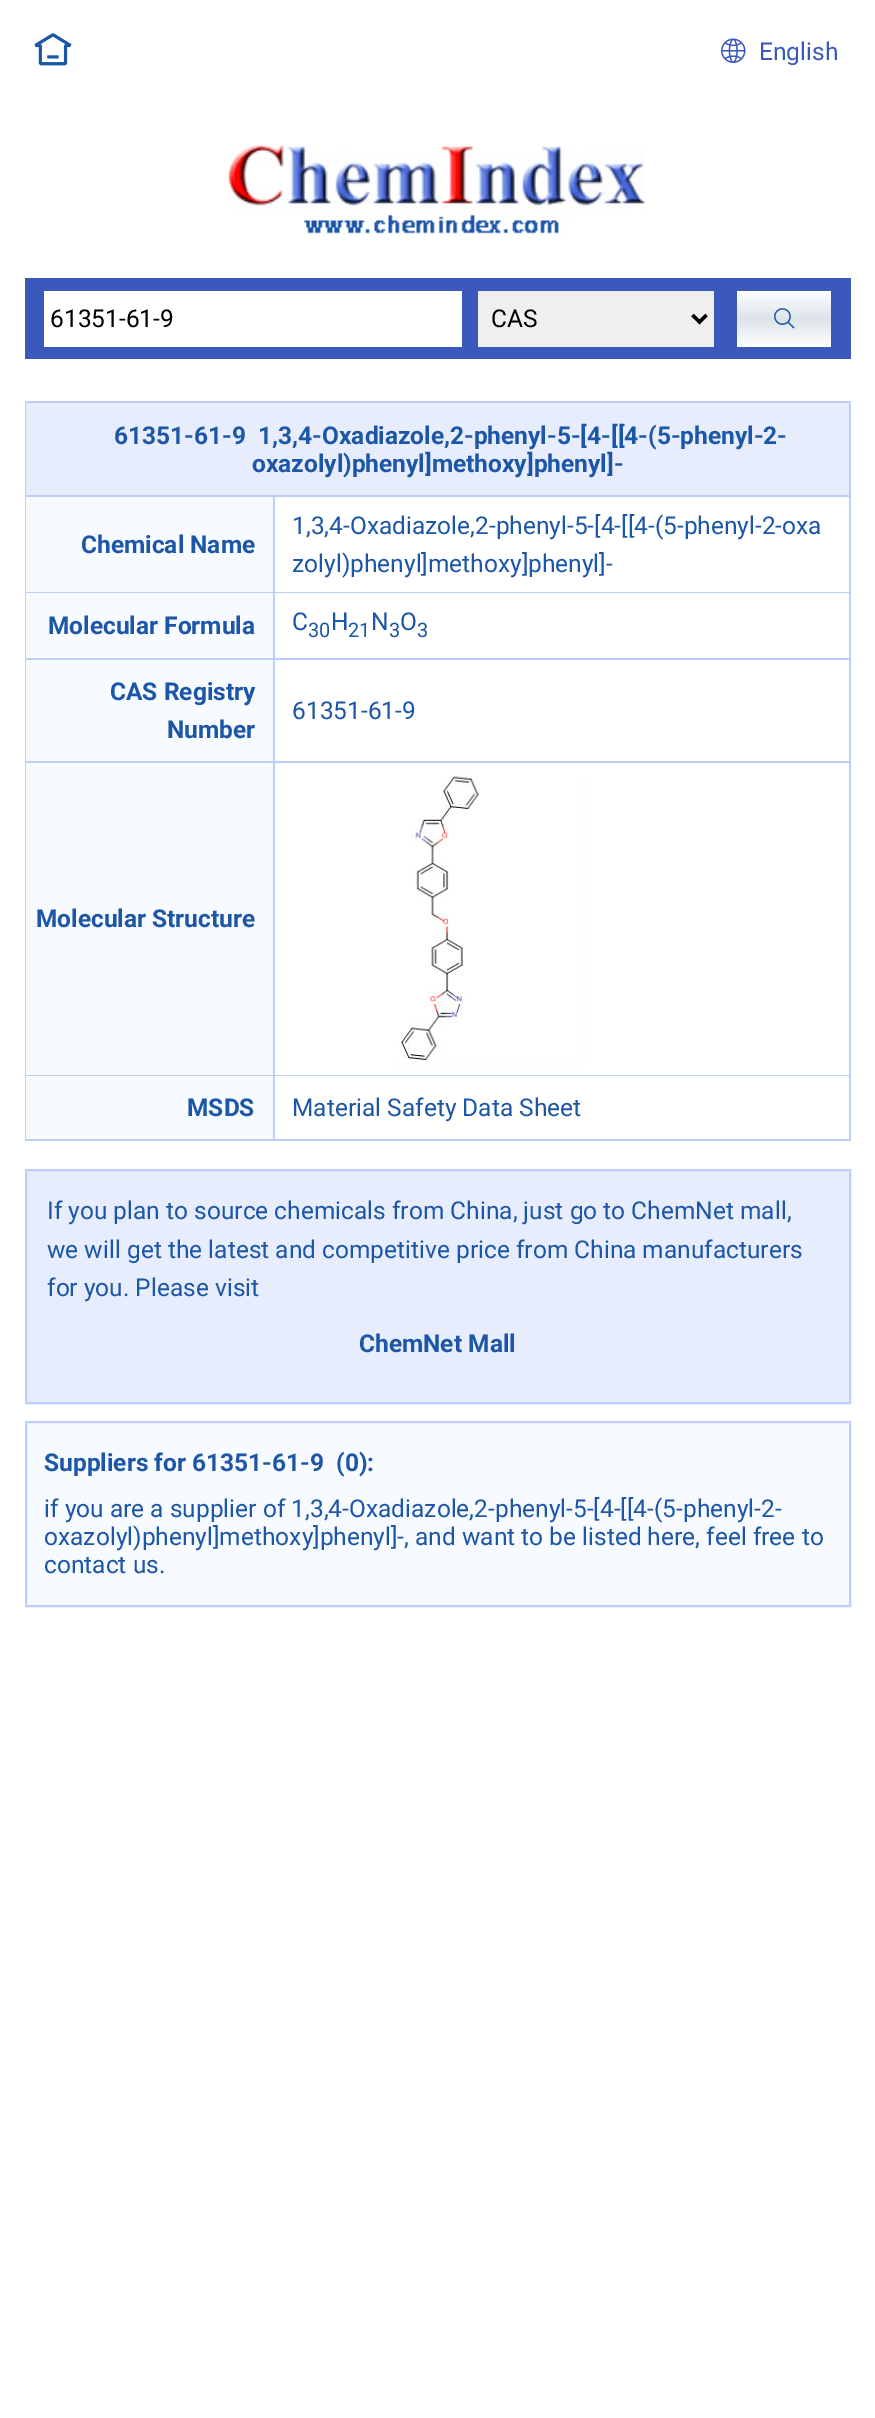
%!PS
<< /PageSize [875 2418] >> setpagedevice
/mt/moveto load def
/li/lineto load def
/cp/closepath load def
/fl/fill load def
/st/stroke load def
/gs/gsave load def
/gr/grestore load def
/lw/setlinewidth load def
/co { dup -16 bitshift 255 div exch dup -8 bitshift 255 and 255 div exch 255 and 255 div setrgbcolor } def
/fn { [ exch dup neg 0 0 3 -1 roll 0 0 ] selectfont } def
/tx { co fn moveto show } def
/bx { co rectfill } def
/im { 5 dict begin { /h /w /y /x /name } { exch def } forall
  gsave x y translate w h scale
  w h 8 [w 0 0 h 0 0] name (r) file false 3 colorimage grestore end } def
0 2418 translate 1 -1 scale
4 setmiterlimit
0 0 875 2418 16#FFFFFF bx
(media/1.raw) 34 33 38 33 im
(media/2.raw) 721 38 25 25 im
(media/3.raw) 228 144 417 90 im
25 278 826 81 16#3B59BA bx
44 291 418 56 16#FFFFFF bx
478 291 236 56 16#EFEFEF bx
16#000000 co
3.5 lw
692.5 315 mt 699.5 322 li 706.5 315 li st
gs 737 291 mt 831 291 li 831 347 li 737 347 li cp clip newpath
<< /ShadingType 2 /ColorSpace /DeviceRGB /Coords [784 291 784 347] /Extend [true true] /Function << /FunctionType 3 /Domain [0 1] /Functions [<< /FunctionType 2 /Domain [0 1] /C0 [1 1 1] /C1 [.863 .89 .914] /N 1 >> << /FunctionType 2 /Domain [0 1] /C0 [.863 .89 .914] /C1 [1 1 1] /N 1 >>] /Bounds [.5] /Encode [0 1 0 1] >> >> shfill gr
(media/4.raw) 774 308 21 21 im
25 401 826 740 16#BFCDFA bx
26 403 823 92 16#E8EDFD bx
26 497 247 95 16#F7FAFF bx
275 497 574 95 16#FFFFFF bx
26 593 247 65 16#F7FAFF bx
275 593 574 65 16#FFFFFF bx
26 660 247 101 16#F7FAFF bx
275 660 574 101 16#FFFFFF bx
26 763 247 312 16#F7FAFF bx
275 763 574 312 16#FFFFFF bx
(media/5.raw) 395 773 191 293 im
26 1076 247 63 16#F7FAFF bx
275 1076 574 63 16#FFFFFF bx
16#E8EDFD co
26 1170 mt 850 1170 li 850 1403 li 26 1403 li cp gs fl gr
16#BFCDFA co
2 lw
st
16#F7FAFF co
26 1422 mt 850 1422 li 850 1606 li 26 1606 li cp gs fl gr
16#BFCDFA co
st
(English) 759 60 /Roboto-Regular 24.5 16#3B59BA tx
(61351-61-9) 50 327 /Roboto-Regular 24.5 16#000000 tx
(CAS) 491 327 /Roboto-Regular 24.5 16#000000 tx
(61351-61-9 1,3,4-Oxadiazole,2-phenyl-5-[4-[[4-\(5-phenyl-2-) 114 444 /Roboto-Bold 24.5 16#1C56A7 tx
(oxazolyl\)phenyl]methoxy]phenyl]-) 252 472 /Roboto-Bold 24.5 16#1C56A7 tx
(Chemical Name) 81 553 /Roboto-Bold 24.5 16#1C56A7 tx
(1,3,4-Oxadiazole,2-phenyl-5-[4-[[4-\(5-phenyl-2-oxa) 292 534 /Roboto-Regular 24.5 16#1C56A7 tx
(zolyl\)phenyl]methoxy]phenyl]-) 292 572 /Roboto-Regular 24.5 16#1C56A7 tx
(Molecular Formula) 48 634 /Roboto-Bold 24.5 16#1C56A7 tx
(C) 292 630 /Roboto-Regular 24.5 16#1C56A7 tx
(30) 308 637 /Roboto-Regular 20 16#1C56A7 tx
(H) 331 630 /Roboto-Regular 24.5 16#1C56A7 tx
(21) 348 637 /Roboto-Regular 20 16#1C56A7 tx
(N) 371 630 /Roboto-Regular 24.5 16#1C56A7 tx
(3) 389 637 /Roboto-Regular 20 16#1C56A7 tx
(O) 400 630 /Roboto-Regular 24.5 16#1C56A7 tx
(3) 417 637 /Roboto-Regular 20 16#1C56A7 tx
(CAS Registry) 110 700 /Roboto-Bold 24.5 16#1C56A7 tx
(Number) 167 738 /Roboto-Bold 24.5 16#1C56A7 tx
(61351-61-9) 292 719 /Roboto-Regular 24.5 16#1C56A7 tx
(Molecular Structure) 36 927 /Roboto-Bold 24.5 16#1C56A7 tx
(MSDS) 187 1116 /Roboto-Bold 24.5 16#1C56A7 tx
(Material Safety Data Sheet) 292 1116 /Roboto-Regular 24.5 16#1C56A7 tx
(If you plan to source chemicals from China, just go to ChemNet mall,) 47 1219 /Roboto-Regular 24.5 16#1C56A7 tx
(we will get the latest and competitive price from China manufacturers) 47 1258 /Roboto-Regular 24.5 16#1C56A7 tx
(for you. Please visit) 47 1296 /Roboto-Regular 24.5 16#1C56A7 tx
(ChemNet Mall) 359 1352 /Roboto-Bold 24.5 16#1C56A7 tx
(Suppliers for 61351-61-9 \(0\):) 44 1471 /Roboto-Bold 24.5 16#1C56A7 tx
(if you are a supplier of 1,3,4-Oxadiazole,2-phenyl-5-[4-[[4-\(5-phenyl-2-) 44 1517 /Roboto-Regular 24.5 16#1C56A7 tx
(oxazolyl\)phenyl]methoxy]phenyl]-, and want to be listed here, feel free to) 44 1545 /Roboto-Regular 24.5 16#1C56A7 tx
(contact us.) 44 1573 /Roboto-Regular 24.5 16#1C56A7 tx
showpage
